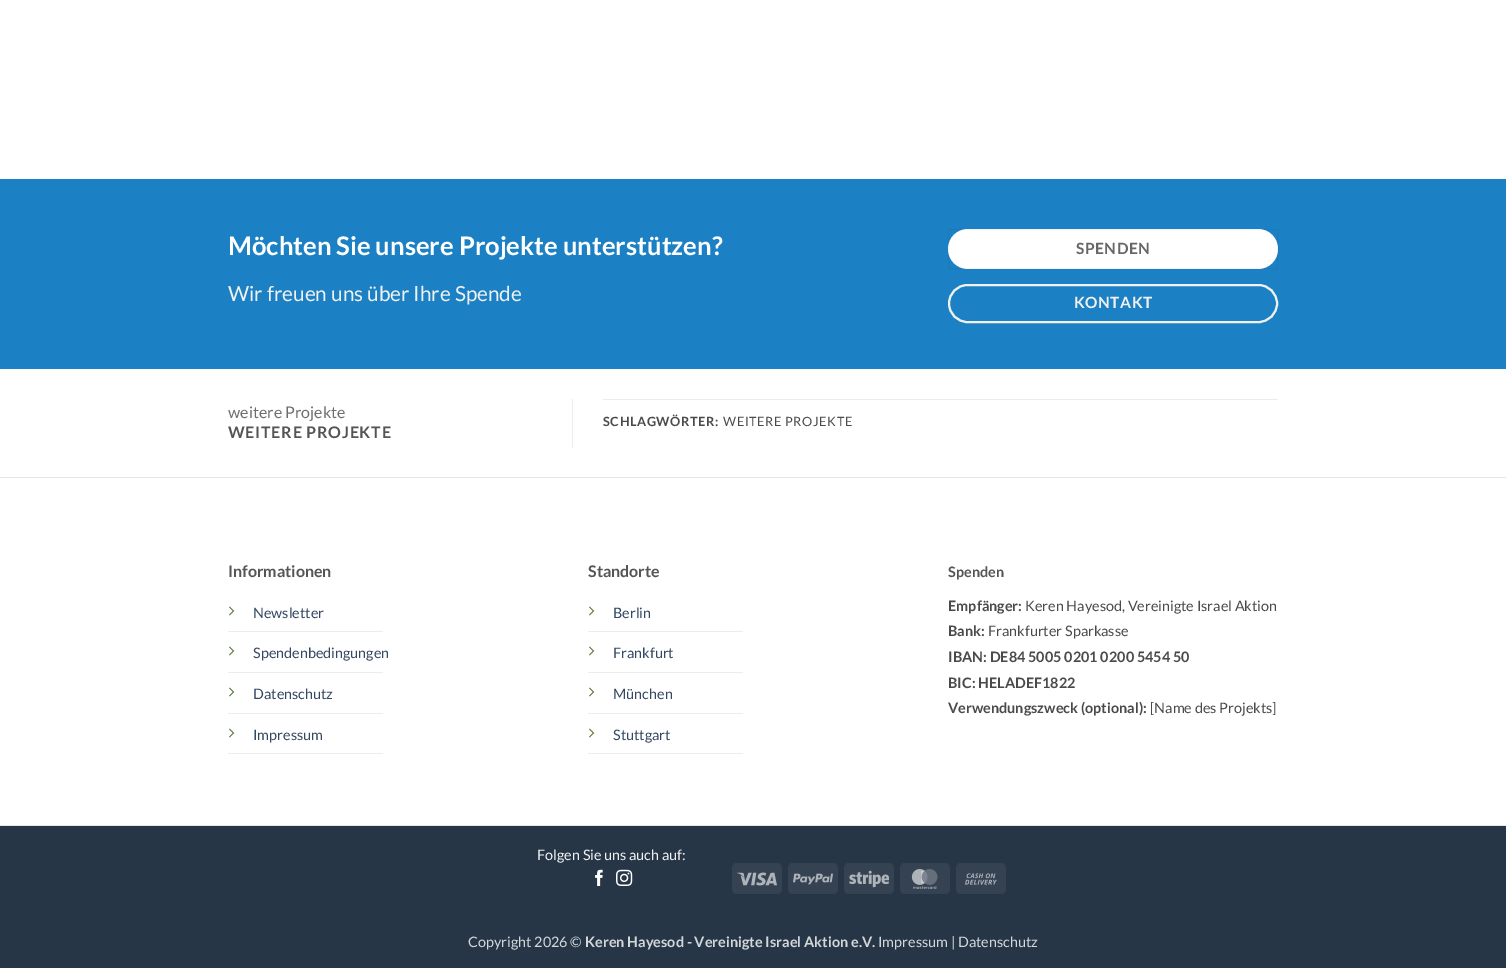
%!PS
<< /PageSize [1506 968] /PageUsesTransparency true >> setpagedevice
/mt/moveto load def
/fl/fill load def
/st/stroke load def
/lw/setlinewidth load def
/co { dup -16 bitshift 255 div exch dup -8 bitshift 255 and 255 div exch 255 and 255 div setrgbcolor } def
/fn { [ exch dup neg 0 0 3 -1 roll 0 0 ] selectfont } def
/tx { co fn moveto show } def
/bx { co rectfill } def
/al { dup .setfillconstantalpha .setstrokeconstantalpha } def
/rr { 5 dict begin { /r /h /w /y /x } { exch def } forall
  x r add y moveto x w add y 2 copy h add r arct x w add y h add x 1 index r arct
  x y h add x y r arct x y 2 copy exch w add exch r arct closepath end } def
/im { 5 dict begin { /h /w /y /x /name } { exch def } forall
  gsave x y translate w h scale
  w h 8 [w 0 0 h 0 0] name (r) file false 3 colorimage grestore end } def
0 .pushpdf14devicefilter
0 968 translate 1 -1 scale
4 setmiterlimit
0 0 1506 968 16#FFFFFF bx
0 179 1506 190 16#1B81C4 bx
16#FFFFFF co
948 229 330 40 20 rr fl
0.05 al
16#000000 co
948.5 229.5 329 39 rectstroke
1 al
16#F1F1F1 co
2 lw
949 285 328 37 18.5 rr st
572 399 1 49 16#ECECEC bx
603 399 675 1 16#ECECEC bx
0 477 1506 1 16#E6E6E6 bx
228 631 155 1 16#ECECEC bx
(media/1.raw) 229 606 6 10 im
228 672 155 1 16#ECECEC bx
(media/1.raw) 229 646 6 10 im
228 713 155 1 16#ECECEC bx
(media/1.raw) 229 687 6 10 im
228 753 155 1 16#ECECEC bx
(media/1.raw) 229 728 6 10 im
588 631 155 1 16#ECECEC bx
(media/1.raw) 589 606 6 10 im
588 672 155 1 16#ECECEC bx
(media/1.raw) 589 646 6 10 im
588 713 155 1 16#ECECEC bx
(media/1.raw) 589 687 6 10 im
588 753 155 1 16#ECECEC bx
(media/1.raw) 589 728 6 10 im
0 825 1506 1 16#E6E6E6 bx
0 826 1506 142 16#273647 bx
(media/2.raw) 595 869 8 17 im
(media/3.raw) 616 869 17 17 im
16#344252 co
732 863 50 31 5 rr fl
(media/4.raw) 737 872 40 14 im
788 863 50 31 5 rr fl
(media/5.raw) 793 873 40 12 im
844 863 50 31 5 rr fl
(media/6.raw) 849 870 40 18 im
900 863 50 31 5 rr fl
(media/7.raw) 911 869 27 20 im
956 863 50 31 5 rr fl
(media/8.raw) 965 873 32 12 im
(Möchten Sie unsere Projekte unterstützen?) 228 255 /Lato-Bold 25.6 16#FFFFFF tx
(Wir freuen uns über Ihre Spende) 228 301 /Lato-Regular 20.75 16#F1F1F1 tx
/Lato-Bold 15.5 fn
16#666666 co
1076 254 mt .5 0 (SPENDEN) ashow
16#F1F1F1 co
1074 308 mt .5 0 (KONTAKT) ashow
(weitere Projekte) 228 418 /Lato-Regular 16 16#6E6E6E tx
/Lato-Bold 16 fn
16#555555 co
228 438 mt .75 0 (WEITERE PROJEKTE) ashow
/Lato-Bold 12.75 fn
16#4A4A4A co
603 426 mt .6 0 (SCHLAGWÖRTER:) ashow
/Lato-Regular 12.75 fn
723 426 mt .6 0 (WEITERE PROJEKTE) ashow
(Informationen) 228 577 /Lato-Bold 16 16#555555 tx
(Newsletter) 253 618 /Lato-Regular 14.4 16#334862 tx
(Spendenbedingungen) 253 658 /Lato-Regular 14.4 16#334862 tx
(Datenschutz) 253 699 /Lato-Regular 14.4 16#334862 tx
(Impressum) 253 740 /Lato-Regular 14.4 16#334862 tx
(Standorte) 588 577 /Lato-Bold 16 16#555555 tx
(Berlin) 613 618 /Lato-Regular 14.4 16#334862 tx
(Frankfurt) 613 658 /Lato-Regular 14.4 16#334862 tx
(München) 613 699 /Lato-Regular 14.4 16#334862 tx
(Stuttgart) 613 740 /Lato-Regular 14.4 16#334862 tx
(Spenden) 948 577 /Lato-Bold 14.4 16#555555 tx
(Empfänger:) 948 611 /Lato-Bold 14.4 16#4A4A4A tx
(Keren Hayesod, Vereinigte Israel Aktion) 1025 611 /Lato-Regular 14.4 16#4A4A4A tx
(Bank:) 948 636 /Lato-Bold 14.4 16#4A4A4A tx
(Frankfurter Sparkasse) 988 636 /Lato-Regular 14.4 16#4A4A4A tx
(IBAN: DE84 5005 0201 0200 5454 50) 948 662 /Lato-Bold 14.4 16#4A4A4A tx
(BIC: HELADEF1822) 948 688 /Lato-Bold 14.4 16#4A4A4A tx
(Verwendungszweck \(optional\):) 948 713 /Lato-Bold 14.4 16#4A4A4A tx
([Name des Projekts]) 1150 713 /Lato-Regular 14.4 16#4A4A4A tx
(Folgen Sie uns auch auf:) 537 860 /Lato-Regular 14.4 16#F1F1F1 tx
(Copyright 2026 ©) 468 947 /Lato-Regular 14.4 16#D4D7DA tx
(Keren Hayesod - Vereinigte Israel Aktion e.V.) 585 947 /Lato-Bold 14.4 16#D4D7DA tx
(Impressum | Datenschutz) 878 947 /Lato-Regular 14.4 16#D4D7DA tx
.poppdf14devicefilter showpage
